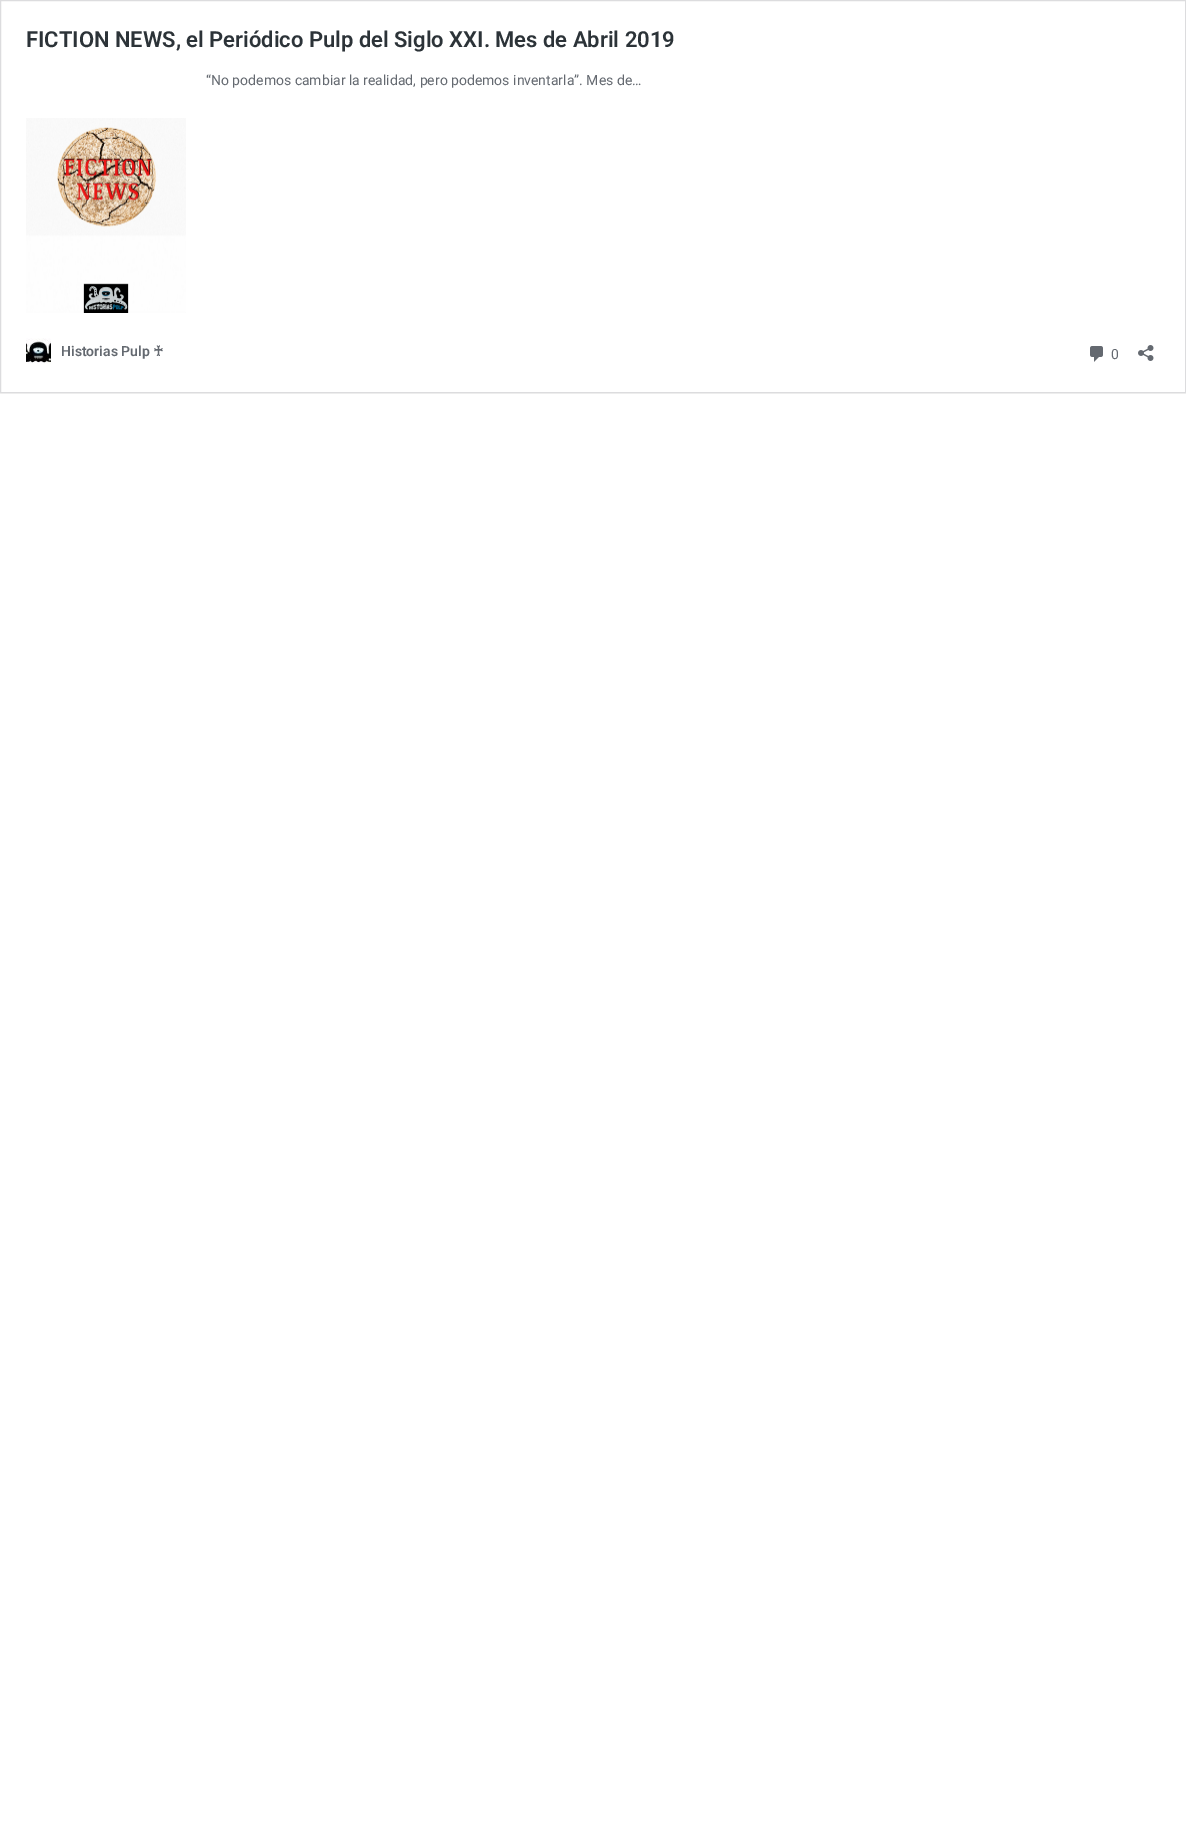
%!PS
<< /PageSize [1186 1822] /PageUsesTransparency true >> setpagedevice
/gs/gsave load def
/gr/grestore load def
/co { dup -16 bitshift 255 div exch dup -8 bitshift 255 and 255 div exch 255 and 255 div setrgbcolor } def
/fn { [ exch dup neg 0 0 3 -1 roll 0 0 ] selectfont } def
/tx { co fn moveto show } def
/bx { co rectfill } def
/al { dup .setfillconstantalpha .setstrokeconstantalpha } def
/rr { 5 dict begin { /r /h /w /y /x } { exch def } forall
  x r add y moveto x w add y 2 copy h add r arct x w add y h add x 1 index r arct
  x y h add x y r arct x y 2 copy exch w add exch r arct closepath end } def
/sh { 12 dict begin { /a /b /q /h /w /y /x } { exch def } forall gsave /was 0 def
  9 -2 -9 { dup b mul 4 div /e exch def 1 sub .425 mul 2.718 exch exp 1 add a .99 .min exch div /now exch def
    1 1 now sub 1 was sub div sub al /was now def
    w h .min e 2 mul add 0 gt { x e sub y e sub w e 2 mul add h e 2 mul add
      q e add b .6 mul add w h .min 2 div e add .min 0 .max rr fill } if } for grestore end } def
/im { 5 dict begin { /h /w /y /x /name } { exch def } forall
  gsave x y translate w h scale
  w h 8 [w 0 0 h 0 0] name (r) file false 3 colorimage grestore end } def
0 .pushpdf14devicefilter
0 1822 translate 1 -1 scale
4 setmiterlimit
0 0 1186 1822 16#FFFFFF bx
gs
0 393 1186 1 rectclip
16#000000 co
0 1 1186 393 0 .5 .05 sh
gr
16#DCDCDE co
.5 .5 1185 392 rectstroke
(media/1.raw) 26 118 160 195 im
(media/2.raw) 26 338 25 26 im
(media/3.raw) 1090 346 13 16 im
(media/4.raw) 1138 345 16 16 im
(FICTION NEWS, el Periódico Pulp del Siglo XXI. Mes de Abril 2019) 26 47 /Roboto-SemiBold 22 16#2C3338 tx
(“No podemos cambiar la realidad, pero podemos inventarla”. Mes de…) 206 85 /Roboto-Regular 14 16#646970 tx
(Historias Pulp) 61 356 /Roboto-SemiBold 14 16#646970 tx
(♰) 153 356 /DejaVuSans-Bold 14 16#646970 tx
(0) 1111 359 /Roboto-Regular 14 16#646970 tx
.poppdf14devicefilter showpage
